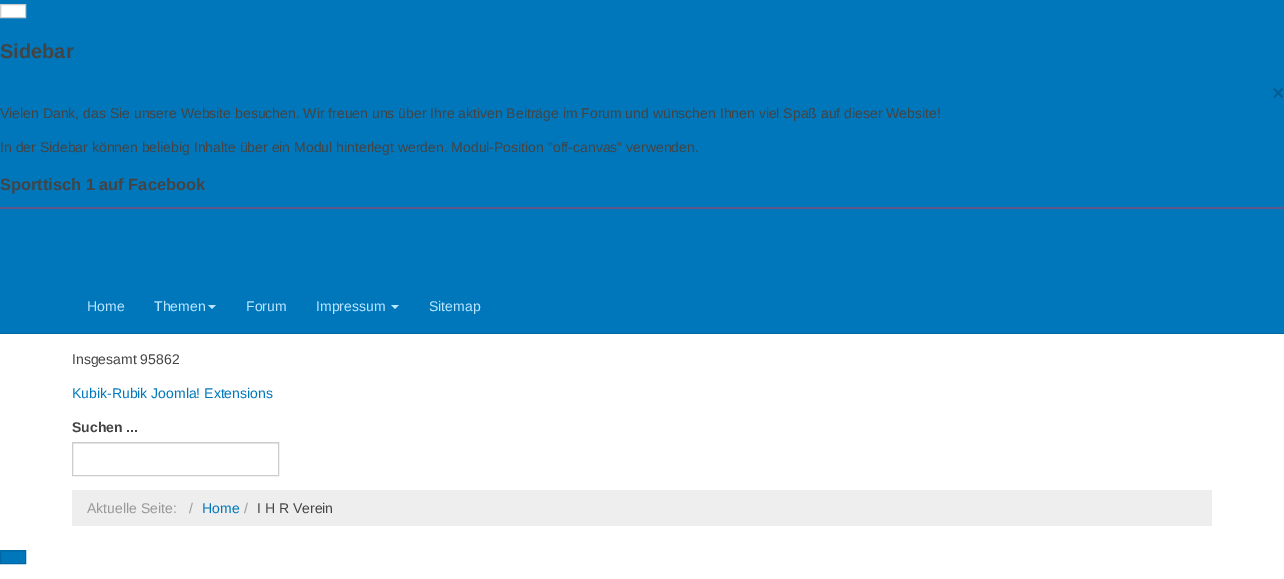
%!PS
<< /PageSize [1284 579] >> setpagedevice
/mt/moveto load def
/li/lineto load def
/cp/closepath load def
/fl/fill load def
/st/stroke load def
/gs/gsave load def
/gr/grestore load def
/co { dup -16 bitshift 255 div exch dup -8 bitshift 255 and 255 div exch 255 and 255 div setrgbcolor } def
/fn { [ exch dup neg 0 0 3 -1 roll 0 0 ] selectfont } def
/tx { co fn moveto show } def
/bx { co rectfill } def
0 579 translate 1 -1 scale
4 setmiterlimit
0 0 1284 579 16#FFFFFF bx
0 0 1284 333 16#0077BB bx
0 333 1284 1 16#0067A2 bx
16#FFFFFF co
.5 4.5 mt 25.5 4.5 li 25.5 17.5 li .5 17.5 li cp gs fl gr
16#CCCCCC co
st
0 207 1284 2 16#60568A bx
16#BBE6FF co
208 305 mt 216 305 li 212 309 li cp fl
391 305 mt 399 305 li 395 309 li cp fl
73 443 205 1 16#ECECEC bx
16#CCCCCC co
72.5 442.5 206 33 rectstroke
72 490 1140 36 16#EEEEEE bx
16#0077BB co
.5 550.5 mt 25.5 550.5 li 25.5 563.5 li .5 563.5 li cp gs fl gr
16#0067A2 co
st
(Sidebar) 0 58 /LiberationSans-Bold 20 16#444444 tx
(×) 1272 100 /LiberationSans-Bold 21 16#005F96 tx
(Vielen Dank, das Sie unsere Website besuchen. Wir freuen uns über Ihre aktiven Beiträge im Forum und wünschen Ihnen viel Spaß auf dieser Website!) 0 118 /LiberationSans-Regular 14 16#444444 tx
(In der Sidebar können beliebig Inhalte über ein Modul hinterlegt werden. Modul-Position "off-canvas" verwenden.) 0 152 /LiberationSans-Regular 14 16#444444 tx
(Sporttisch 1 auf Facebook) 0 190 /LiberationSans-Bold 16.4 16#444444 tx
(Home) 87 311 /LiberationSans-Regular 14 16#BBE6FF tx
(Themen) 154 311 /LiberationSans-Regular 14 16#BBE6FF tx
(Forum) 246 311 /LiberationSans-Regular 14 16#BBE6FF tx
(Impressum) 316 311 /LiberationSans-Regular 14 16#BBE6FF tx
(Sitemap) 429 311 /LiberationSans-Regular 14 16#BBE6FF tx
(Insgesamt 95862) 72 364 /LiberationSans-Regular 14 16#444444 tx
(Kubik-Rubik Joomla! Extensions) 72 398 /LiberationSans-Regular 14 16#0077BB tx
(Suchen ...) 72 432 /LiberationSans-Bold 14 16#444444 tx
(Aktuelle Seite:) 87 513 /LiberationSans-Regular 14 16#999999 tx
(/) 189 513 /LiberationSans-Regular 14 16#999999 tx
(Home) 202 513 /LiberationSans-Regular 14 16#0077BB tx
(/) 244 513 /LiberationSans-Regular 14 16#999999 tx
(I H R Verein) 257 513 /LiberationSans-Regular 14 16#444444 tx
showpage
